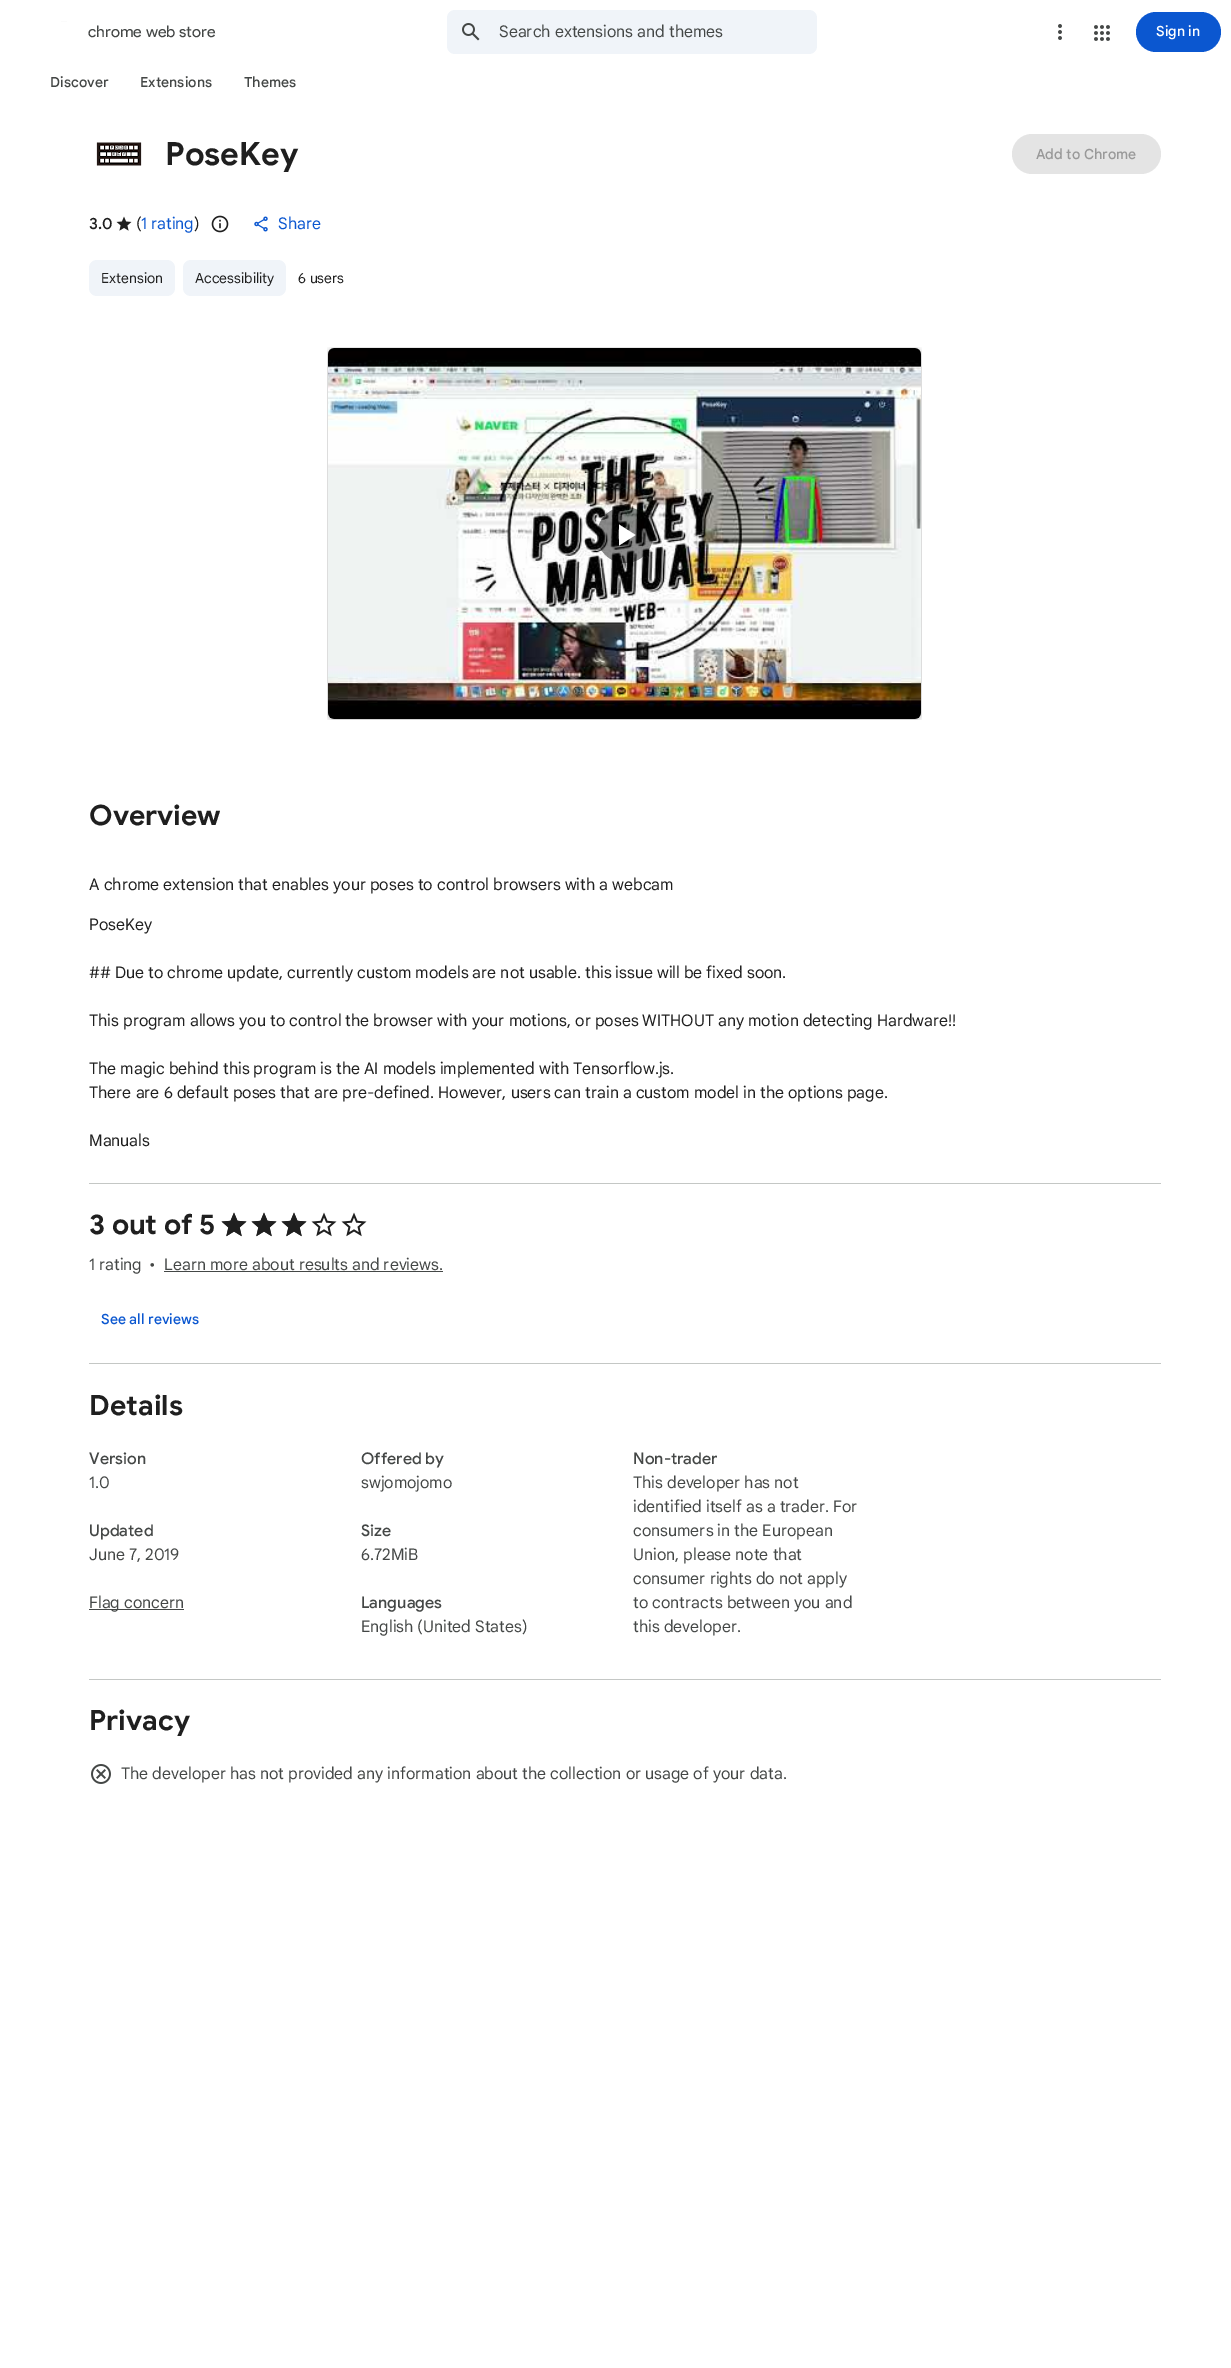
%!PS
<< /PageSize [1231 2368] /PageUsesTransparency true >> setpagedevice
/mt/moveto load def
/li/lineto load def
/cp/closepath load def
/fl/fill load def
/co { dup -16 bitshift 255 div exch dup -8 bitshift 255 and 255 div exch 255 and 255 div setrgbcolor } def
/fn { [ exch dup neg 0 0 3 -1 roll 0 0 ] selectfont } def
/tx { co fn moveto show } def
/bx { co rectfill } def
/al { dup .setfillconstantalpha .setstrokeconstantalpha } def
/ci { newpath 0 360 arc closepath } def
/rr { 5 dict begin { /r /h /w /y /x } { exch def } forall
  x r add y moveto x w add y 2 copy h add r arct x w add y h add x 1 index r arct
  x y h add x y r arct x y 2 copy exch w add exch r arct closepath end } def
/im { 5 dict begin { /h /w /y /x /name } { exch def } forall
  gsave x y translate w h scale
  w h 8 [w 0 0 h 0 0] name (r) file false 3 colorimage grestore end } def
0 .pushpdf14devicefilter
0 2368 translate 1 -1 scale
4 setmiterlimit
0 0 1231 2368 16#FFFFFF bx
(media/1.raw) 61 21 6 1 im
16#F0F4F9 co
447 10 370 44 8 rr fl
(media/2.raw) 462 23 18 18 im
(media/3.raw) 1058 24 4 16 im
(media/4.raw) 1094 25 16 16 im
16#0B57D0 co
1136 12 85 40 20 rr fl
(media/5.raw) 96 142 46 24 im
16#E4E4E4 co
1012 134 149 40 20 rr fl
(media/6.raw) 116 216 16 15 im
(media/7.raw) 211 215 18 18 im
(media/8.raw) 254 216 14 16 im
16#F0F4F9 co
89 260 86 36 8 rr fl
183 260 103 36 8 rr fl
(media/9.raw) 327 347 595 373 im
0.45 al
16#000000 co
625 535 28 ci fl
1 al
16#FFFFFF co
619 524.5 mt 619 545.5 li 635.5 535 li cp fl
89 1183 1072 1 16#C4C7C5 bx
89 1363 1072 1 16#C4C7C5 bx
(media/10.raw) 221 1212 26 25 im
(media/10.raw) 251 1212 26 25 im
(media/10.raw) 281 1212 26 25 im
(media/10.raw) 311 1212 26 25 im
(media/10.raw) 341 1212 26 25 im
(media/11.raw) 221 1212 26 25 im
(media/11.raw) 251 1212 26 25 im
(media/11.raw) 281 1212 26 25 im
164 1271 279 1 16#444746 bx
89 1679 1072 1 16#C4C7C5 bx
89 1609 95 1 16#444746 bx
(media/12.raw) 91 1764 20 20 im
(chrome web store) 88 37 /ProductSans-Regular 16 16#444746 tx
(Search extensions and themes) 499 37 /GoogleSans-Regular 16 16#444746 tx
(Sign in) 1156 36 /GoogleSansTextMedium-Medium 14 16#FFFFFF tx
(Discover) 50 87 /GoogleSansTextMedium-Medium 14 16#444746 tx
(Extensions) 140 87 /GoogleSansTextMedium-Medium 14 16#444746 tx
(Themes) 244 87 /GoogleSansTextMedium-Medium 14 16#444746 tx
(PoseKey) 165 165 /GoogleSans-Bold 32 16#1F1F1F tx
(Add to Chrome) 1036 159 /GoogleSansTextMedium-Medium 14 16#999999 tx
(3.0) 89 229 /GoogleSans-Medium 16 16#1F1F1F tx
(\() 136 229 /GoogleSans-Regular 16 16#1F1F1F tx
(1 rating) 141 229 /GoogleSans-Regular 16 16#0B57D0 tx
(\)) 194 229 /GoogleSans-Regular 16 16#1F1F1F tx
(Share) 278 229 /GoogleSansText-Regular 16 16#0B57D0 tx
(Extension) 101 283 /GoogleSans-Regular 14 16#1F1F1F tx
(Accessibility) 195 283 /GoogleSans-Regular 14 16#1F1F1F tx
(6 users) 298 283 /GoogleSans-Regular 14 16#1F1F1F tx
(Overview) 89 825 /GoogleSans-Bold 28 16#1F1F1F tx
(A chrome extension that enables your poses to control browsers with a webcam) 89 890 /GoogleSans-Regular 16 16#1F1F1F tx
(PoseKey) 89 930 /GoogleSans-Regular 16 16#1F1F1F tx
(## Due to chrome update, currently custom models are not usable. this issue will be fixed soon.) 89 978 /GoogleSans-Regular 16 16#1F1F1F tx
(This program allows you to control the browser with your motions, or poses WITHOUT any motion detecting Hardware!!) 89 1026 /GoogleSans-Regular 16 16#1F1F1F tx
(The magic behind this program is the AI models implemented with Tensorflow.js.) 89 1074 /GoogleSans-Regular 16 16#1F1F1F tx
(There are 6 default poses that are pre-defined. However, users can train a custom model in the options page.) 89 1098 /GoogleSans-Regular 16 16#1F1F1F tx
(Manuals) 89 1146 /GoogleSans-Regular 16 16#1F1F1F tx
(3 out of 5) 89 1234 /GoogleSans-Bold 28 16#1F1F1F tx
(1 rating) 89 1270 /GoogleSans-Regular 16 16#444746 tx
(•) 149 1270 /GoogleSans-Regular 16 16#444746 tx
(Learn more about results and reviews.) 164 1270 /GoogleSans-Regular 16 16#444746 tx
(See all reviews) 101 1324 /GoogleSansTextMedium-Medium 14 16#0B57D0 tx
(Details) 89 1415 /GoogleSans-Bold 28 16#1F1F1F tx
(Version) 89 1464 /GoogleSans-Medium 16 16#444746 tx
(1.0) 89 1488 /GoogleSans-Regular 16 16#444746 tx
(Offered by) 361 1464 /GoogleSans-Medium 16 16#444746 tx
(swjomojomo) 361 1488 /GoogleSans-Regular 16 16#444746 tx
(Non-trader) 633 1464 /GoogleSans-Medium 16 16#444746 tx
(This developer has not) 633 1488 /GoogleSans-Regular 16 16#444746 tx
(identified itself as a trader. For) 633 1512 /GoogleSans-Regular 16 16#444746 tx
(consumers in the European) 633 1536 /GoogleSans-Regular 16 16#444746 tx
(Union, please note that) 633 1560 /GoogleSans-Regular 16 16#444746 tx
(consumer rights do not apply) 633 1584 /GoogleSans-Regular 16 16#444746 tx
(to contracts between you and) 633 1608 /GoogleSans-Regular 16 16#444746 tx
(this developer.) 633 1632 /GoogleSans-Regular 16 16#444746 tx
(Updated) 89 1536 /GoogleSans-Medium 16 16#444746 tx
(June 7, 2019) 89 1560 /GoogleSans-Regular 16 16#444746 tx
(Size) 361 1536 /GoogleSans-Medium 16 16#444746 tx
(6.72MiB) 361 1560 /GoogleSans-Regular 16 16#444746 tx
(Flag concern) 89 1608 /GoogleSans-Regular 16 16#444746 tx
(Languages) 361 1608 /GoogleSans-Medium 16 16#444746 tx
(English \(United States\)) 361 1632 /GoogleSans-Regular 16 16#444746 tx
(Privacy) 89 1730 /GoogleSans-Bold 28 16#1F1F1F tx
(The developer has not provided any information about the collection or usage of your data.) 121 1779 /GoogleSans-Regular 16 16#444746 tx
.poppdf14devicefilter showpage
